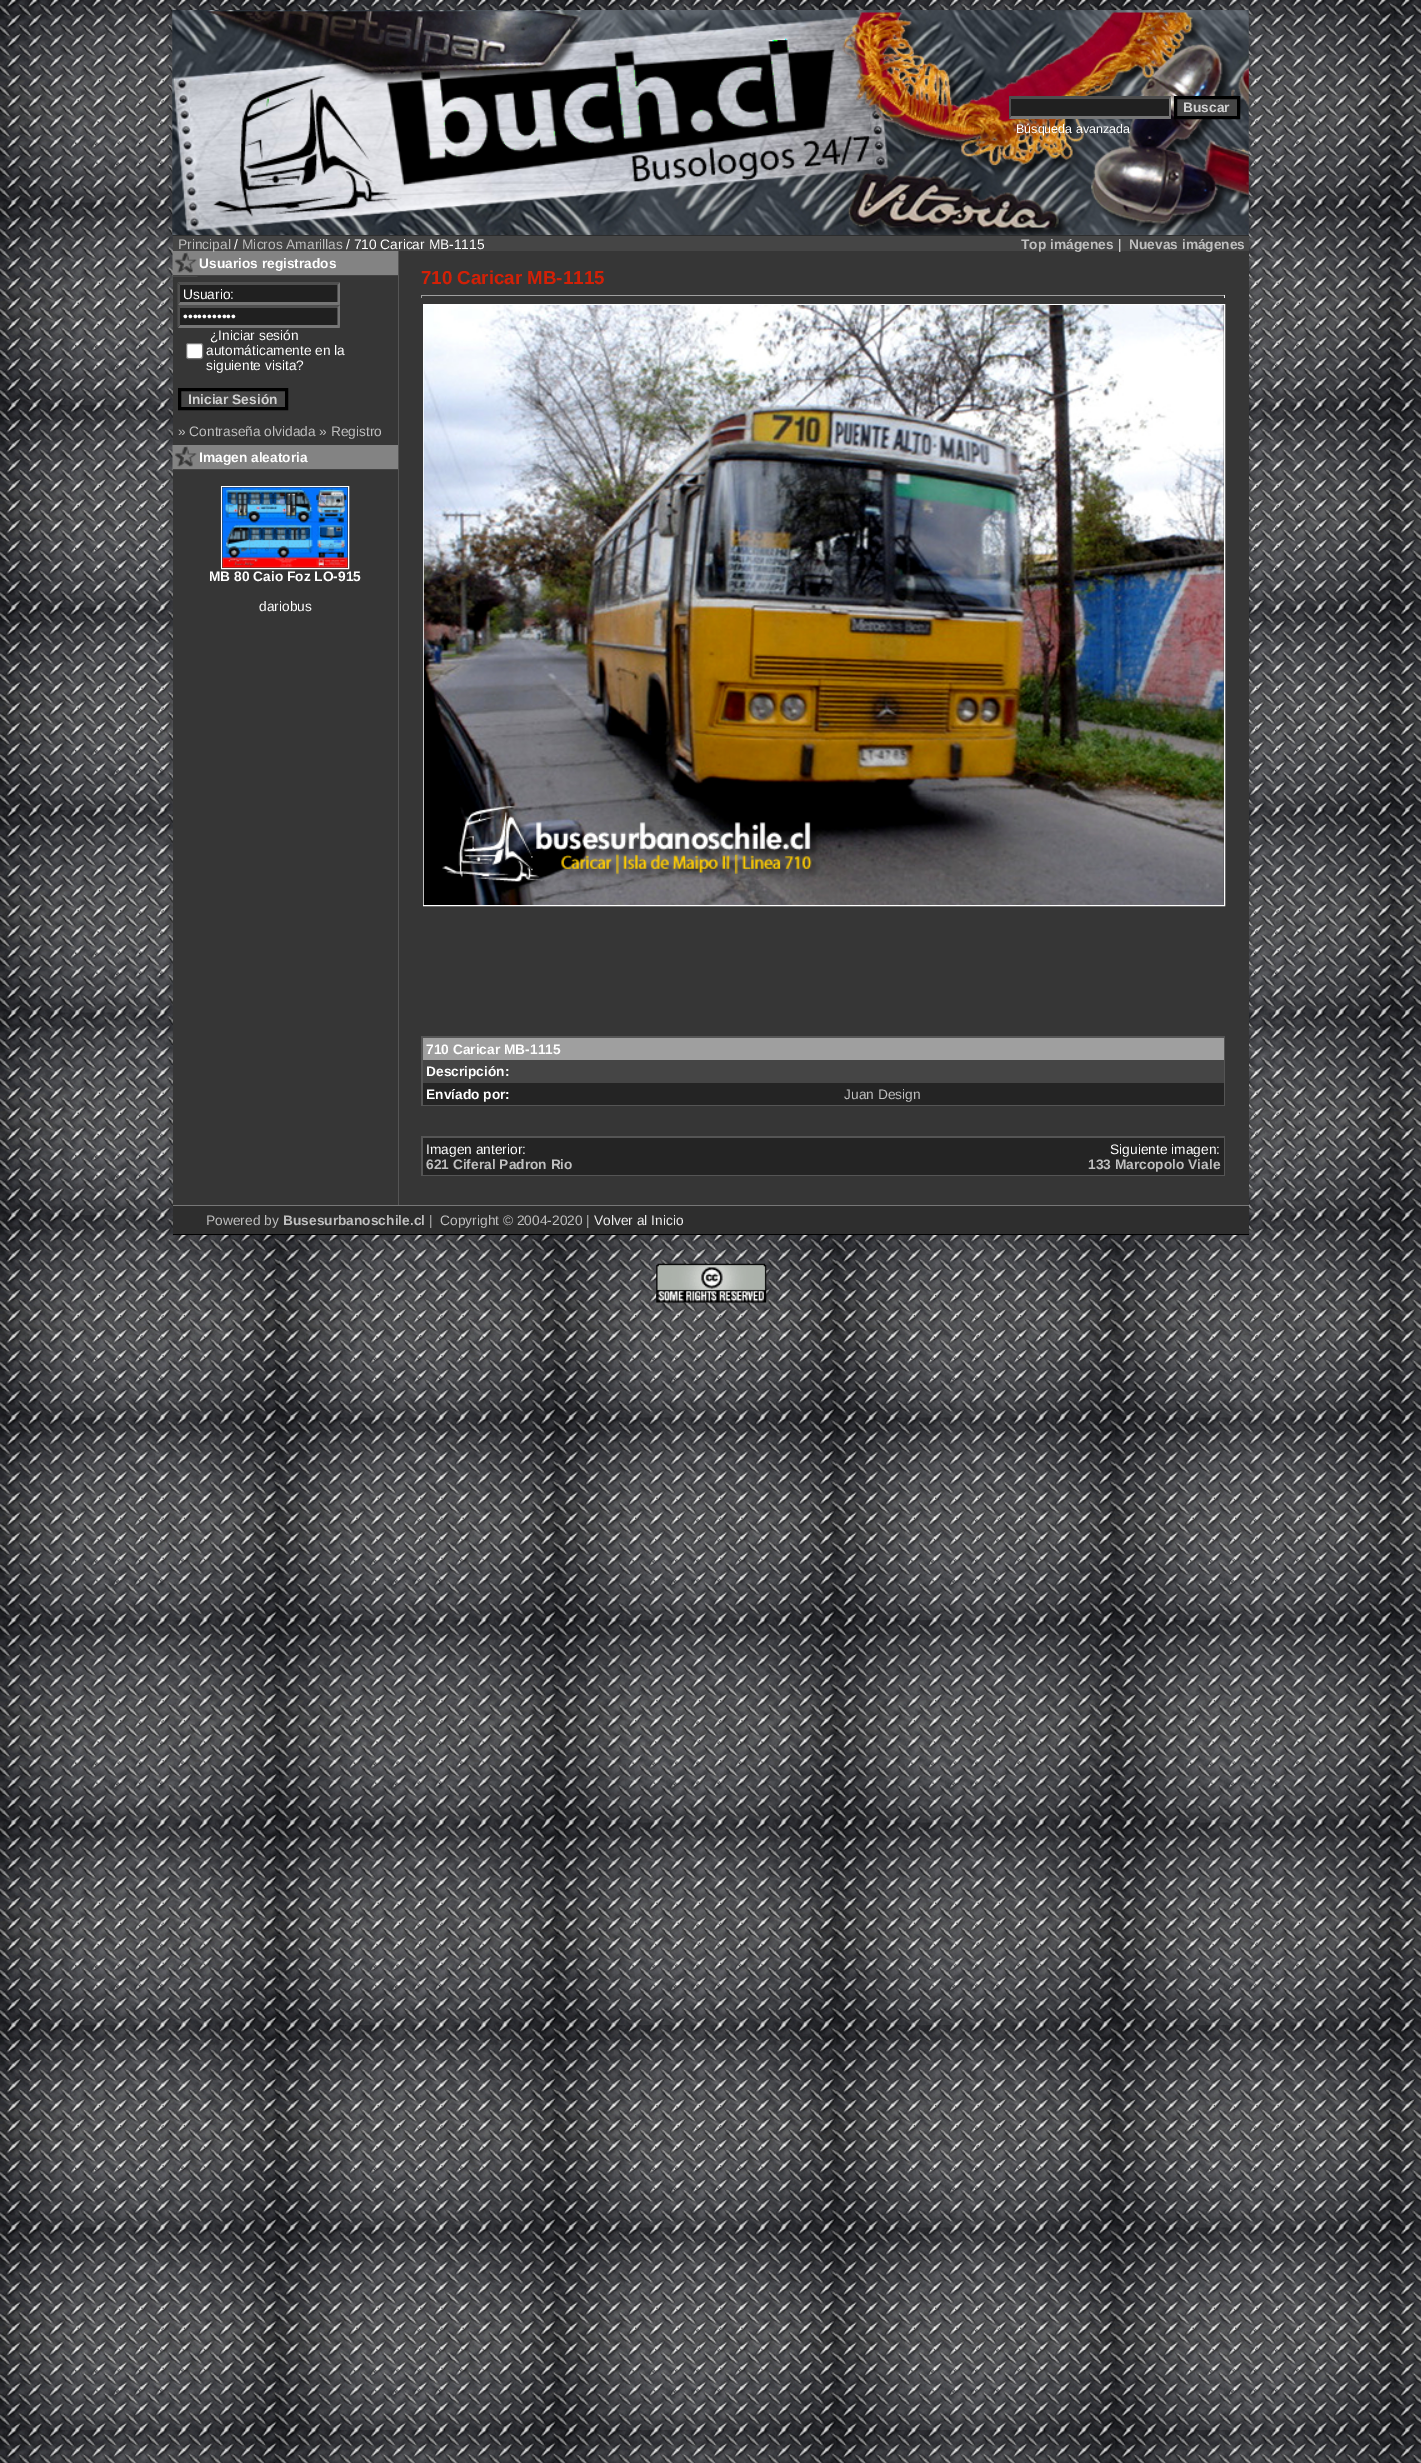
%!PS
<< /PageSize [1421 2463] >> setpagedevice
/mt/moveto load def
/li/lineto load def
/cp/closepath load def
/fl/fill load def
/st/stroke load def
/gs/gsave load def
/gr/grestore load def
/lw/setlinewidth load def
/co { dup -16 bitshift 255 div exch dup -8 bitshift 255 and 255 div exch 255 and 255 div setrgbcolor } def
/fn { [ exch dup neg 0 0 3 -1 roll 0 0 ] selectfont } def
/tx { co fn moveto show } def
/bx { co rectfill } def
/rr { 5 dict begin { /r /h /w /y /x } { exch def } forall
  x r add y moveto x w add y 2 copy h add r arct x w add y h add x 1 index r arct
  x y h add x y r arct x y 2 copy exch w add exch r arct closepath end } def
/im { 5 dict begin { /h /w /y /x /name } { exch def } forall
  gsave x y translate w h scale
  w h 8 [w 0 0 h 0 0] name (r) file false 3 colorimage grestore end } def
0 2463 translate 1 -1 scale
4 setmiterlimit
0 0 1421 2463 16#FFFFFF bx
(media/1.raw) 0 0 1421 2463 im
(media/2.raw) 172 10 1077 227 im
173 235 1076 1 16#2D2D2D bx
(media/3.raw) 172 10 805 225 im
1009 96 162 23 16#202020 bx
16#4F4F4F co
1009 96 mt 1171 96 li 1169 99 li 1011 99 li cp fl
16#767676 co
1171 96 mt 1171 119 li 1169 116 li 1169 99 li cp fl
1171 119 mt 1009 119 li 1011 116 li 1169 116 li cp fl
16#4F4F4F co
1009 119 mt 1009 96 li 1011 99 li 1011 116 li cp fl
16#454545 co
1175.5 97.5 mt 1238.5 97.5 li 1238.5 117.5 li 1175.5 117.5 li cp gs fl gr
16#000000 co
3 lw
st
173 251 1076 954 16#363636 bx
173 236 1076 15 16#454545 bx
173 251 225 24 16#838383 bx
(media/4.raw) 172 252 26 25 im
173 275 225 1 16#434343 bx
178 283 162 45 16#202020 bx
16#4F4F4F co
178 282 mt 340 282 li 338 285 li 180 285 li cp fl
16#767676 co
340 282.5 mt 340 305 li 337.5 302.5 li 337.5 285 li cp fl
340 305 mt 178 305 li 180 302 li 338 302 li cp fl
16#4F4F4F co
177.5 305 mt 177.5 282.5 li 180 285 li 180 302.5 li cp fl
178 305 mt 340 305 li 338 308 li 180 308 li cp fl
16#767676 co
340 305 mt 340 327.5 li 337.5 325 li 337.5 307.5 li cp fl
340 328 mt 178 328 li 180 325 li 338 325 li cp fl
16#4F4F4F co
177.5 327.5 mt 177.5 305 li 180 307.5 li 180 325 li cp fl
16#FFFFFF co
186.5 343.5 16 15 2 rr gs fl gr
16#767676 co
1 lw
st
16#454545 co
179.5 389.5 mt 286.5 389.5 li 286.5 408.5 li 179.5 408.5 li cp gs fl gr
16#000000 co
3 lw
st
197 445 201 24 16#838383 bx
(media/5.raw) 172 445 25 25 im
173 469 225 1 16#434343 bx
16#FFFFFF co
1 lw
221.5 486.5 127 82 rectstroke
(media/6.raw) 222 487 126 81 im
398 251 1 954 16#555555 bx
421 295 804 1 16#9F9F9F bx
1224 295 1 3 16#EEEEEE bx
421 295 1 3 16#9F9F9F bx
16#FFFFFF co
423.5 304.5 801 601 rectstroke
(media/7.raw) 423 305 801 600 im
421 1036 804 70 16#555555 bx
423 1038 801 22 16#9F9F9F bx
423 1060 801 23 16#454545 bx
423 1083 801 22 16#242424 bx
421 1136 804 40 16#555555 bx
423 1138 801 37 16#242424 bx
173 1206 1076 28 16#2E2E2E bx
173 1205 1076 1 16#777777 bx
173 1234 1076 1 16#000000 bx
(media/8.raw) 656 1263 111 40 im
(Buscar) 1183 112 /LiberationSans-Bold 13.75 16#D2D2D2 tx
(Búsqueda avanzada) 1016 133 /LiberationSans-Regular 12.5 16#FFFFFF tx
(Principal) 178 249 /LiberationSans-Regular 13.75 16#C0C0C0 tx
(/) 234 249 /LiberationSans-Regular 13.75 16#FFFFFF tx
(Micros Amarillas) 242 249 /LiberationSans-Regular 13.75 16#C0C0C0 tx
(/ 710 Caricar MB-1115) 346 249 /LiberationSans-Regular 13.75 16#FFFFFF tx
(Top imágenes) 1021 249 /LiberationSans-Bold 13.75 16#C0C0C0 tx
(|) 1118 249 /LiberationSans-Regular 13.75 16#FFFFFF tx
(Nuevas imágenes) 1129 249 /LiberationSans-Bold 13.75 16#C0C0C0 tx
(Usuarios registrados) 199 268 /LiberationSans-Bold 13.75 16#FFFFFF tx
(Usuario:) 183 299 /LiberationSans-Regular 13.75 16#FFFFFF tx
(•••••••••••) 183 321 /LiberationSans-Regular 13.75 16#FFFFFF tx
(¿Iniciar sesión) 210 340 /LiberationSans-Regular 13.75 16#FFFFFF tx
(automáticamente en la) 206 355 /LiberationSans-Regular 13.75 16#FFFFFF tx
(siguiente visita?) 206 370 /LiberationSans-Regular 13.75 16#FFFFFF tx
(Iniciar Sesión) 188 404 /LiberationSans-Bold 13.75 16#D2D2D2 tx
(» Contraseña olvidada » Registro) 178 436 /LiberationSans-Regular 13.75 16#C0C0C0 tx
(Imagen aleatoria) 199 462 /LiberationSans-Bold 13.75 16#FFFFFF tx
(MB 80 Caio Foz LO-915) 209 581 /LiberationSans-Bold 13.75 16#FFFFFF tx
(dariobus) 259 611 /LiberationSans-Regular 13.75 16#FFFFFF tx
(710 Caricar MB-1115) 421 284 /LiberationSans-Bold 18.75 16#D22006 tx
(710 Caricar MB-1115) 426 1054 /LiberationSans-Bold 13.75 16#FFFFFF tx
(Descripción:) 426 1076 /LiberationSans-Bold 13.75 16#FFFFFF tx
(Envíado por:) 426 1099 /LiberationSans-Bold 13.75 16#FFFFFF tx
(Juan Design) 844 1099 /LiberationSans-Regular 13.75 16#C0C0C0 tx
(Imagen anterior:) 426 1154 /LiberationSans-Regular 13.75 16#FFFFFF tx
(621 Ciferal Padron Rio) 426 1169 /LiberationSans-Bold 13.75 16#C0C0C0 tx
(Siguiente imagen:) 1110 1154 /LiberationSans-Regular 13.75 16#FFFFFF tx
(133 Marcopolo Viale) 1088 1169 /LiberationSans-Bold 13.75 16#C0C0C0 tx
(Powered by) 206 1225 /LiberationSans-Regular 13.75 16#C0C0C0 tx
(Busesurbanoschile.cl) 283 1225 /LiberationSans-Bold 13.75 16#C0C0C0 tx
(|  Copyright © 2004-2020 |) 429 1225 /LiberationSans-Regular 13.75 16#C0C0C0 tx
(Volver al Inicio) 594 1225 /LiberationSans-Regular 13.75 16#EFEFEF tx
showpage
